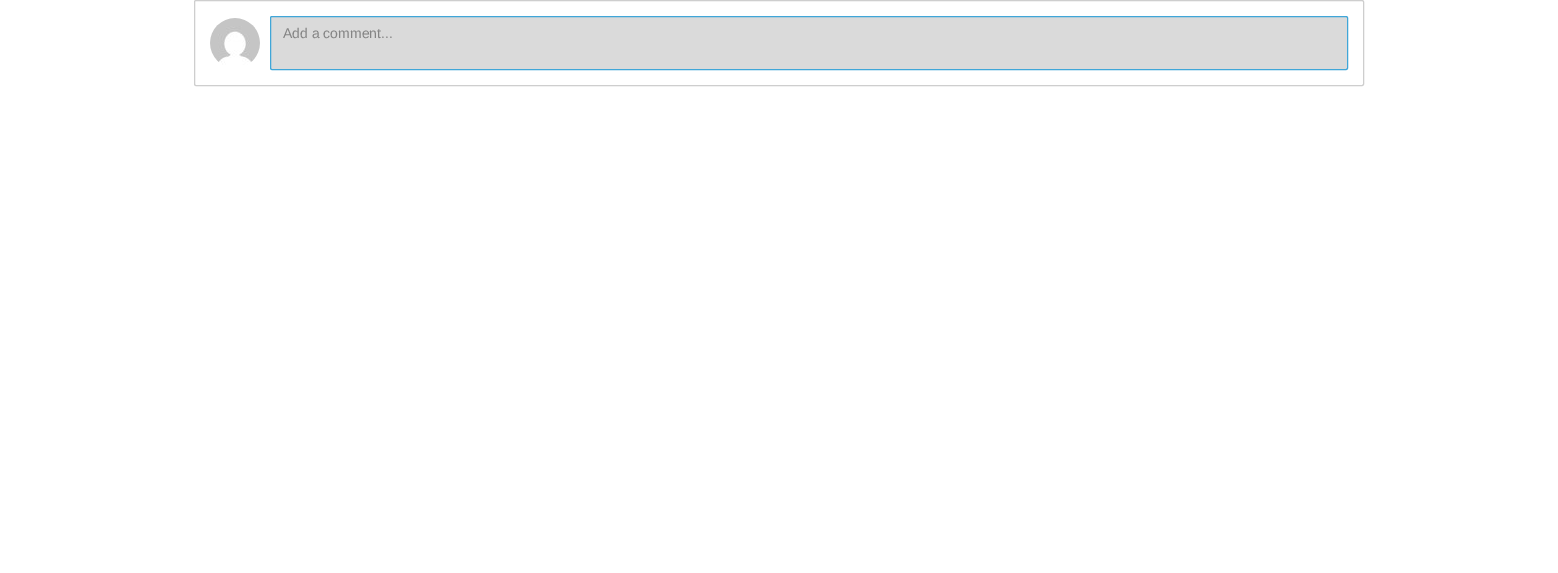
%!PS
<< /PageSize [1558 573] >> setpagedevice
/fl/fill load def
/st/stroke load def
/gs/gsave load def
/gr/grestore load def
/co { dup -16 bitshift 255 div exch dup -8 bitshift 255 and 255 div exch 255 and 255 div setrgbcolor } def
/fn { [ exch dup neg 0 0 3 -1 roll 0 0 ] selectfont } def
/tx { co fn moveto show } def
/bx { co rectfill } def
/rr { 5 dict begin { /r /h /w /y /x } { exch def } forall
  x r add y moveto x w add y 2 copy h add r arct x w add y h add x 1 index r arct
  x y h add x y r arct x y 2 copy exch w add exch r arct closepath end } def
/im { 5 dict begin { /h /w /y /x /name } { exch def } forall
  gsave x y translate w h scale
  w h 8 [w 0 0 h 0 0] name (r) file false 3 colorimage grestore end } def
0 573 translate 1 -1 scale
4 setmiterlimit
0 0 1558 573 16#FFFFFF bx
16#CECECE co
194.5 .5 1169 85 1.5 rr st
(media/1.raw) 210 18 50 47 im
16#DADADA co
270.5 16.5 1077 53 1.5 rr gs fl gr
16#40A6D8 co
st
(Add a comment...) 283 38 /LiberationSans-Regular 14 16#848484 tx
showpage
